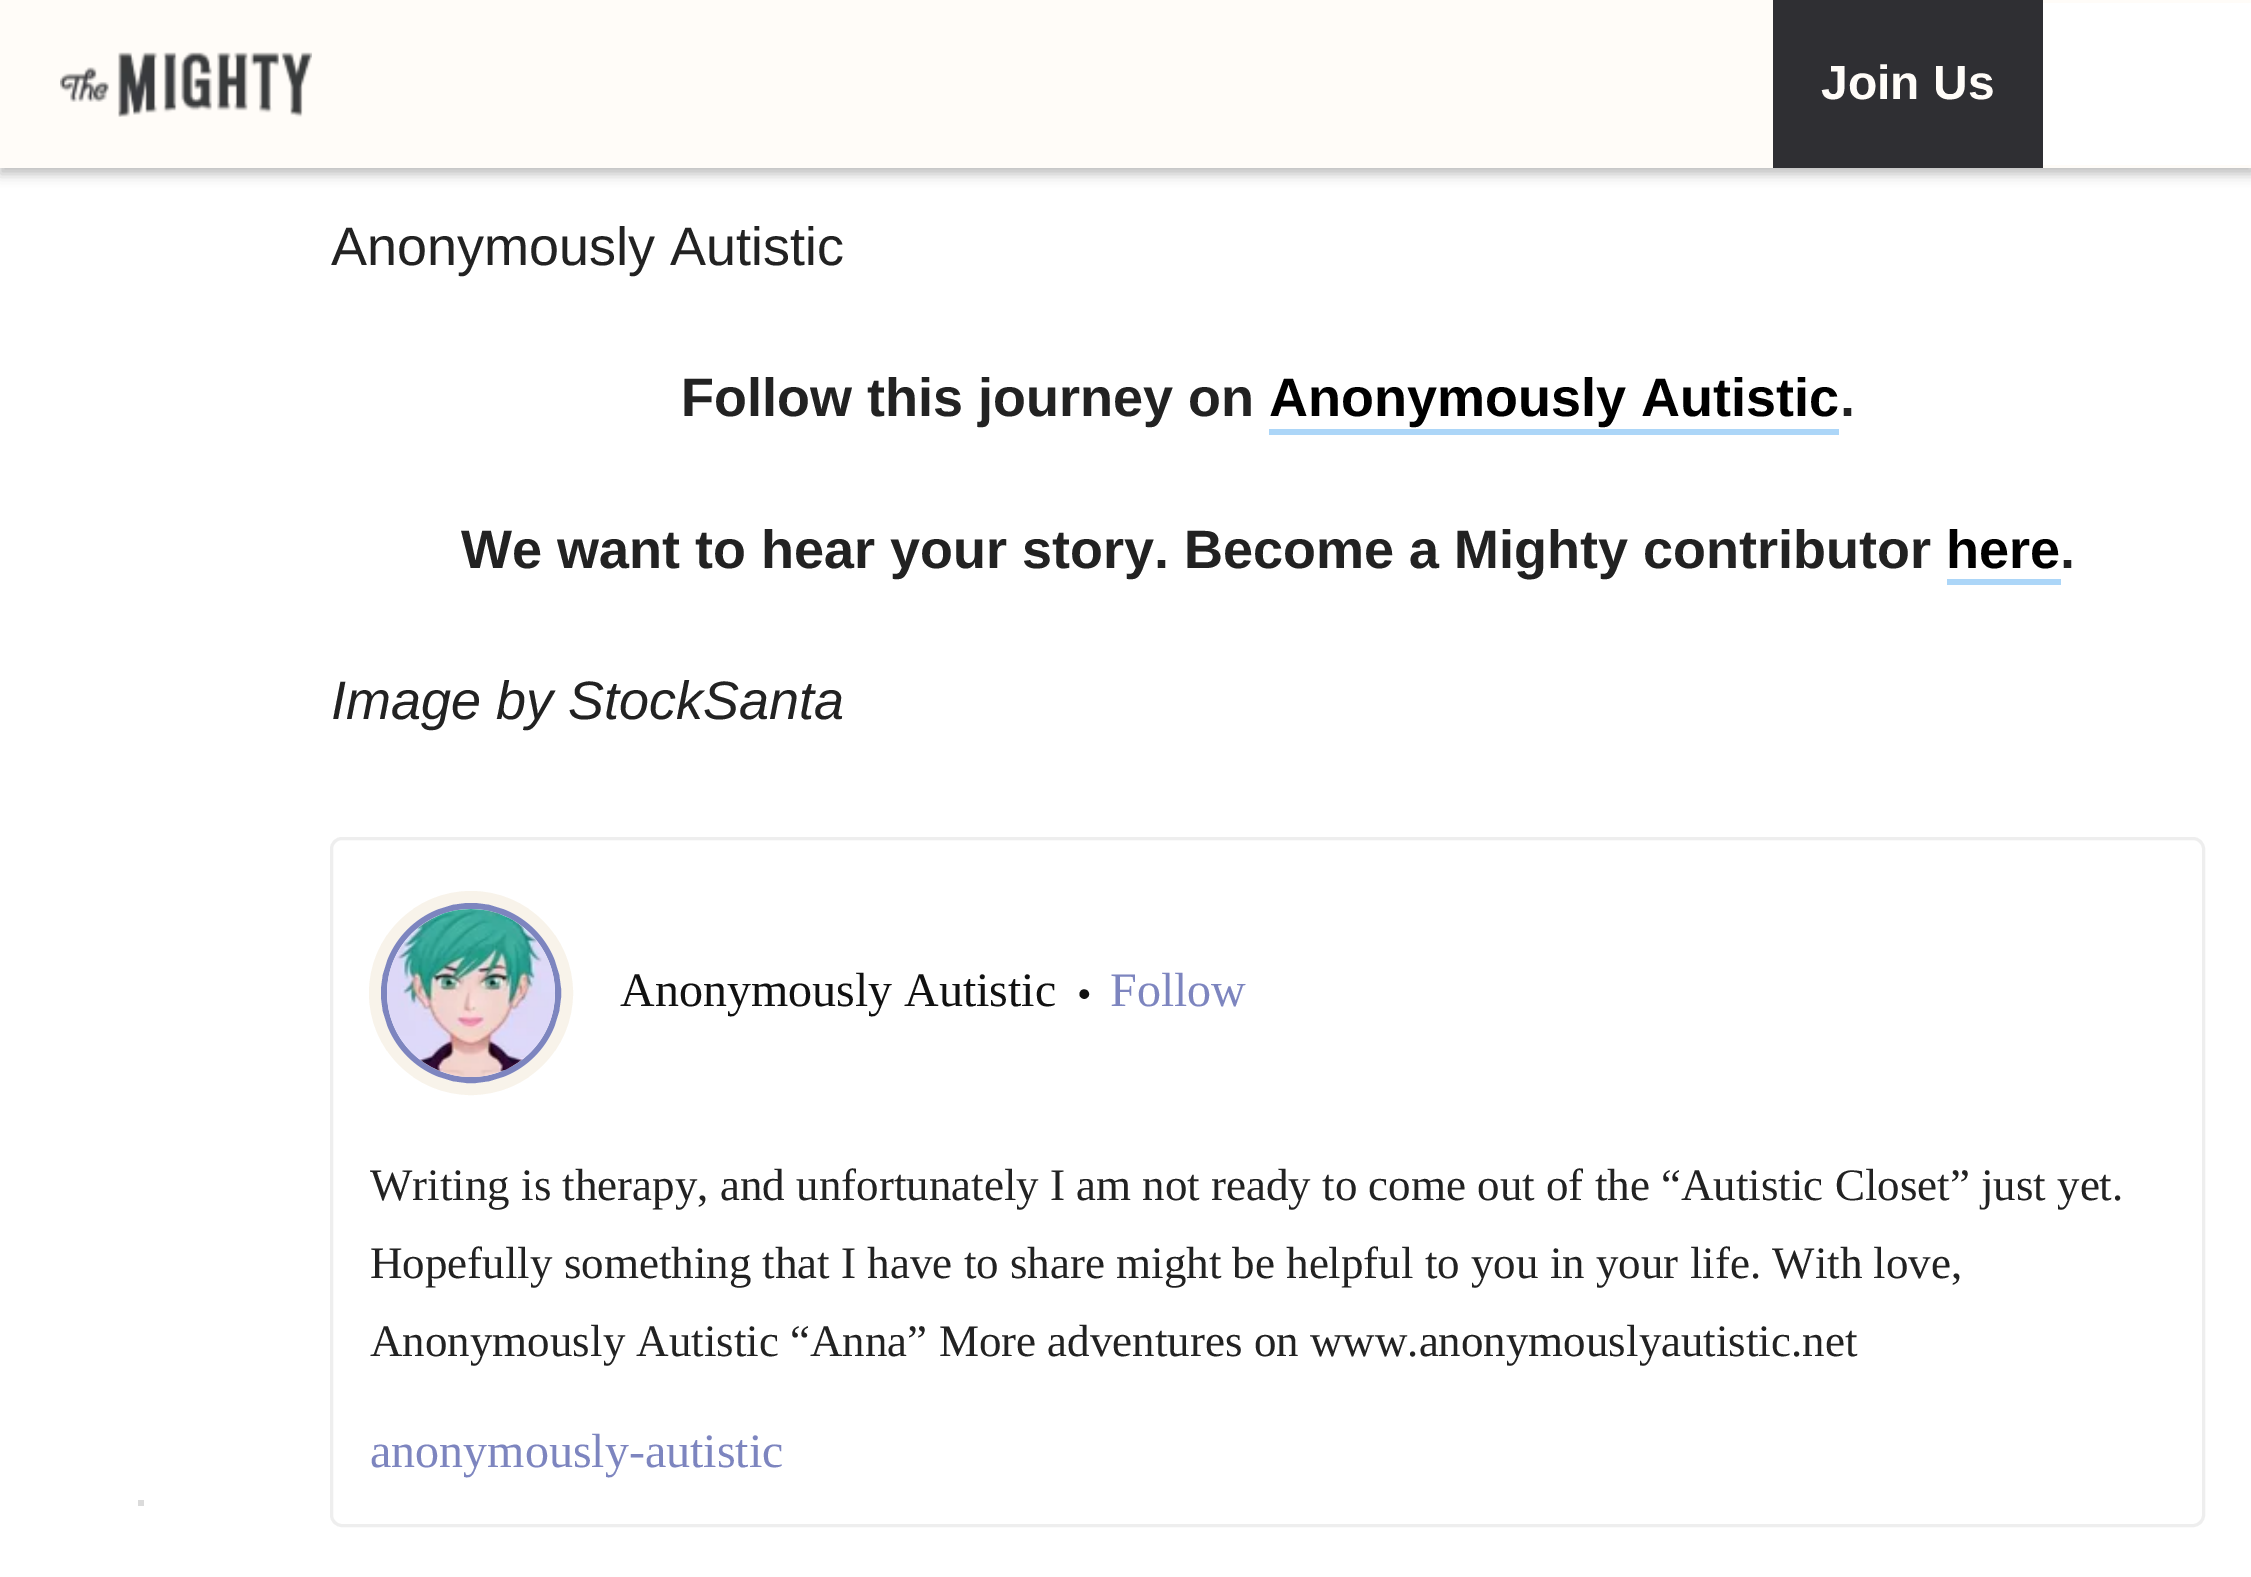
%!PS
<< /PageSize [2251 1577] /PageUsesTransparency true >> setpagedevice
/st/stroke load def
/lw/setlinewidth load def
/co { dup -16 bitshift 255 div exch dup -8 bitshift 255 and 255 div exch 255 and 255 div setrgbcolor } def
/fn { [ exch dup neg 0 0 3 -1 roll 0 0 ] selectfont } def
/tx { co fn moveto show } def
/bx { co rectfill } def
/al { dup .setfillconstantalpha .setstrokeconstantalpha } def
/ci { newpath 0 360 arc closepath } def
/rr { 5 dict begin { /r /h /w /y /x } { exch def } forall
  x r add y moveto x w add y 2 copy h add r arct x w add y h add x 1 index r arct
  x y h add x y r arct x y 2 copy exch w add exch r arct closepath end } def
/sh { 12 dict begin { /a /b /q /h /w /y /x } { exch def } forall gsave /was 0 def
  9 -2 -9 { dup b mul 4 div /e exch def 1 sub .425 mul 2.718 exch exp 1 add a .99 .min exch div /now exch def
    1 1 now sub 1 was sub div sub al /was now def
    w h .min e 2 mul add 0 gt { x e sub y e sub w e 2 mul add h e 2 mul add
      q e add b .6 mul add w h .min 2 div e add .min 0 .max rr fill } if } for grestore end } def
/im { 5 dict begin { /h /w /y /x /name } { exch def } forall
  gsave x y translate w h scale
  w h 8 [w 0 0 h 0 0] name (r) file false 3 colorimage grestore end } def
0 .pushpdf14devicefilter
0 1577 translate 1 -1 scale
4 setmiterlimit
0 0 2251 1577 16#FFFFFF bx
16#000000 co
0 6 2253 168 0 6 .25 sh
0 0 2251 168 16#FFFCF8 bx
(media/1.raw) 60 52 252 65 im
1773 0 270 168 16#2F2F33 bx
2043 3 208 162 16#FFFFFF bx
1269 429 570 6 16#ACD6F8 bx
1947 579 114 6 16#ACD6F8 bx
16#EEEEEE co
3 lw
331.5 838.5 1872 687 10.5 rr st
16#F8F3EA co
12 lw
471 993 96 ci st
16#7D85BF co
6 lw
471 993 87 ci st
(media/2.raw) 387 909 168 168 im
138 1500 6 6 16#DBDBDB bx
(Join Us) 1821 99 /LiberationSans-Bold 48 16#FFFCF8 tx
(Anonymously Autistic) 331 265 /LiberationSans-Regular 54 16#222222 tx
(Follow this journey on) 681 416 /LiberationSans-Bold 54 16#222222 tx
(Anonymously Autistic) 1269 416 /LiberationSans-Bold 54 16#000000 tx
(.) 1840 416 /LiberationSans-Bold 54 16#222222 tx
(We want to hear your story. Become a Mighty contributor) 461 568 /LiberationSans-Bold 54 16#222222 tx
(here) 1946 568 /LiberationSans-Bold 54 16#000000 tx
(.) 2060 568 /LiberationSans-Bold 54 16#222222 tx
(Image by StockSanta) 331 719 /LiberationSans-Italic 54 16#222222 tx
(Anonymously Autistic) 620 1006 /LiberationSerif-Regular 48 16#111111 tx
(•) 1078 1006 /LiberationSans-Regular 36 16#111111 tx
(Follow) 1110 1006 /LiberationSerif-Regular 48 16#7D85BF tx
(Writing is therapy, and unfortunately I am not ready to come out of the “Autistic Closet” just yet.) 370 1200 /LiberationSerif-Regular 45 16#222222 tx
(Hopefully something that I have to share might be helpful to you in your life. With love,) 370 1278 /LiberationSerif-Regular 45 16#222222 tx
(Anonymously Autistic “Anna” More adventures on www.anonymouslyautistic.net) 370 1356 /LiberationSerif-Regular 45 16#222222 tx
(anonymously-autistic) 370 1467 /LiberationSerif-Regular 48 16#7D85BF tx
.poppdf14devicefilter showpage
